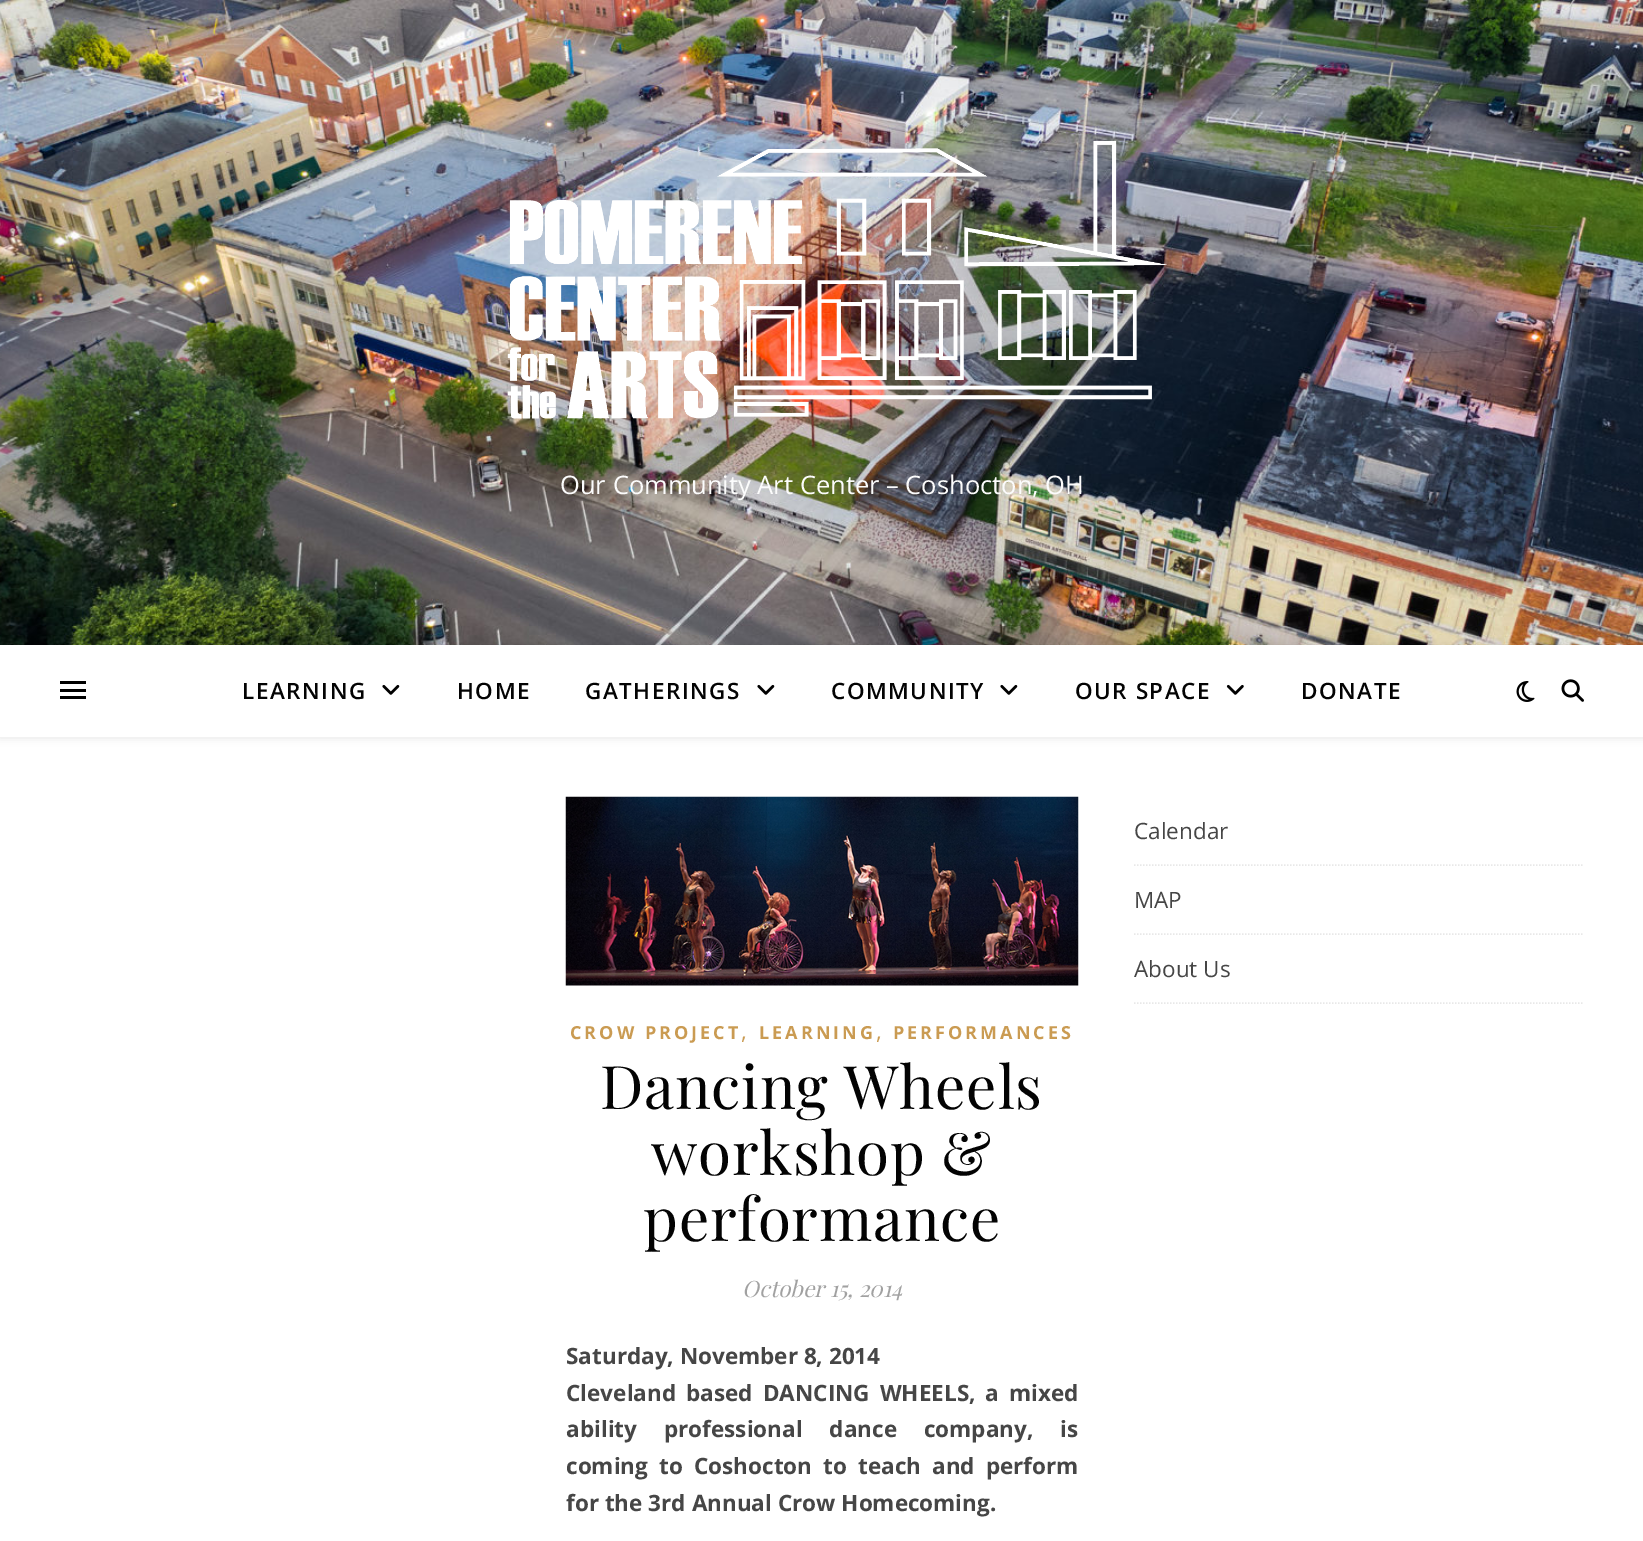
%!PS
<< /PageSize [1643 1541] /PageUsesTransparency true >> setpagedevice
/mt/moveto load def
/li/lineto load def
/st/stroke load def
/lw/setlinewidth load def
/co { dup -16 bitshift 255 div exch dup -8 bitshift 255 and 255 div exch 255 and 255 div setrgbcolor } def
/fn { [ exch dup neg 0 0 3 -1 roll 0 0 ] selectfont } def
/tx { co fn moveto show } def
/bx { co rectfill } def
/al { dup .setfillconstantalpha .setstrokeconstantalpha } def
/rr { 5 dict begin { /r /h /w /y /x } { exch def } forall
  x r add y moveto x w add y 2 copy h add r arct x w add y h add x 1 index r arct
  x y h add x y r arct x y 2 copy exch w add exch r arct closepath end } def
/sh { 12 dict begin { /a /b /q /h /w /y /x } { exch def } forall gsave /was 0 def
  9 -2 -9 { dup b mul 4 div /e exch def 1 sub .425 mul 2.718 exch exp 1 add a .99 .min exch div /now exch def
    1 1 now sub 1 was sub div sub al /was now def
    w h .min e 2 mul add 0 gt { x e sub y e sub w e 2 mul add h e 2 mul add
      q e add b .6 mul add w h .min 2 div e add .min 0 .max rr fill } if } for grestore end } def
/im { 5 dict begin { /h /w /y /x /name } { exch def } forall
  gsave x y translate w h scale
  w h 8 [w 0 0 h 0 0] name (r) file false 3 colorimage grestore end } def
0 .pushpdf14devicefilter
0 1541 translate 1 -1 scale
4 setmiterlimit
0 0 1643 1541 16#FFFFFF bx
(media/1.raw) 0 0 1643 645 im
(media/2.raw) 507 141 661 278 im
16#000000 co
0 647 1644 91 0 4 .1 sh
0 645 1643 92 16#FFFFFF bx
60 681 26 3 16#000000 bx
60 689 26 3 16#000000 bx
60 696 26 3 16#000000 bx
(media/3.raw) 382 684 18 11 im
(media/3.raw) 757 684 18 11 im
(media/3.raw) 1000 684 18 11 im
(media/4.raw) 1226 684 18 11 im
(media/5.raw) 1516 681 19 21 im
(media/6.raw) 1561 679 23 23 im
16#E8E8E8 co
1.5 lw
[1.5 1.5] 0 setdash
1134 865 mt 1584 865 li st
1134 934 mt 1584 934 li st
1134 1003 mt 1584 1003 li st
(media/7.raw) 565 796 514 190 im
(Our Community Art Center – Coshocton, OH) 560 494 /OpenSans-Regular 25.5 16#FCFCFC tx
/OpenSans-SemiBold 22.5 fn
16#030303 co
242 699 mt 1.5 0 (LEARNING) ashow
457 699 mt 1.5 0 (HOME) ashow
585 699 mt 1.5 0 (GATHERINGS) ashow
831 699 mt 1.5 0 (COMMUNITY) ashow
1075 699 mt 1.5 0 (OUR SPACE) ashow
1301 699 mt 1.5 0 (DONATE) ashow
(Calendar) 1134 839 /OpenSans-Regular 22.5 16#464646 tx
(MAP) 1134 908 /OpenSans-Regular 22.5 16#464646 tx
(About Us) 1134 977 /OpenSans-Regular 22.5 16#464646 tx
/OpenSans-Bold 18 fn
16#CA9B52 co
570 1039 mt 3 0 (CROW PROJECT) ashow
(,) 741 1039 /OpenSans-Regular 22.5 16#CA9B52 tx
/OpenSans-Bold 18 fn
759 1039 mt 3 0 (LEARNING) ashow
(,) 876 1039 /OpenSans-Regular 22.5 16#CA9B52 tx
/OpenSans-Bold 18 fn
893 1039 mt 3 0 (PERFORMANCES) ashow
/PlayfairDisplay-Regular 60 fn
16#030303 co
600 1109 mt .75 0 (Dancing Wheels) ashow
651 1175 mt .75 0 (workshop &) ashow
643 1241 mt .75 0 (performance) ashow
(October 15, 2014) 742 1297 /PlayfairDisplay-Italic 22.5 16#A1A1A1 tx
(Saturday, November 8, 2014) 566 1364 /OpenSans-Bold 22.5 16#464646 tx
566 1401 mt 4.25 0 32 (Cleveland based DANCING WHEELS, a mixed) widthshow
566 1437 mt 21 0 32 (ability professional dance company, is) widthshow
566 1474 mt 5.25 0 32 (coming to Coshocton to teach and perform) widthshow
(for the 3rd Annual Crow Homecoming.) 566 1511 /OpenSans-Bold 22.5 16#464646 tx
.poppdf14devicefilter showpage
